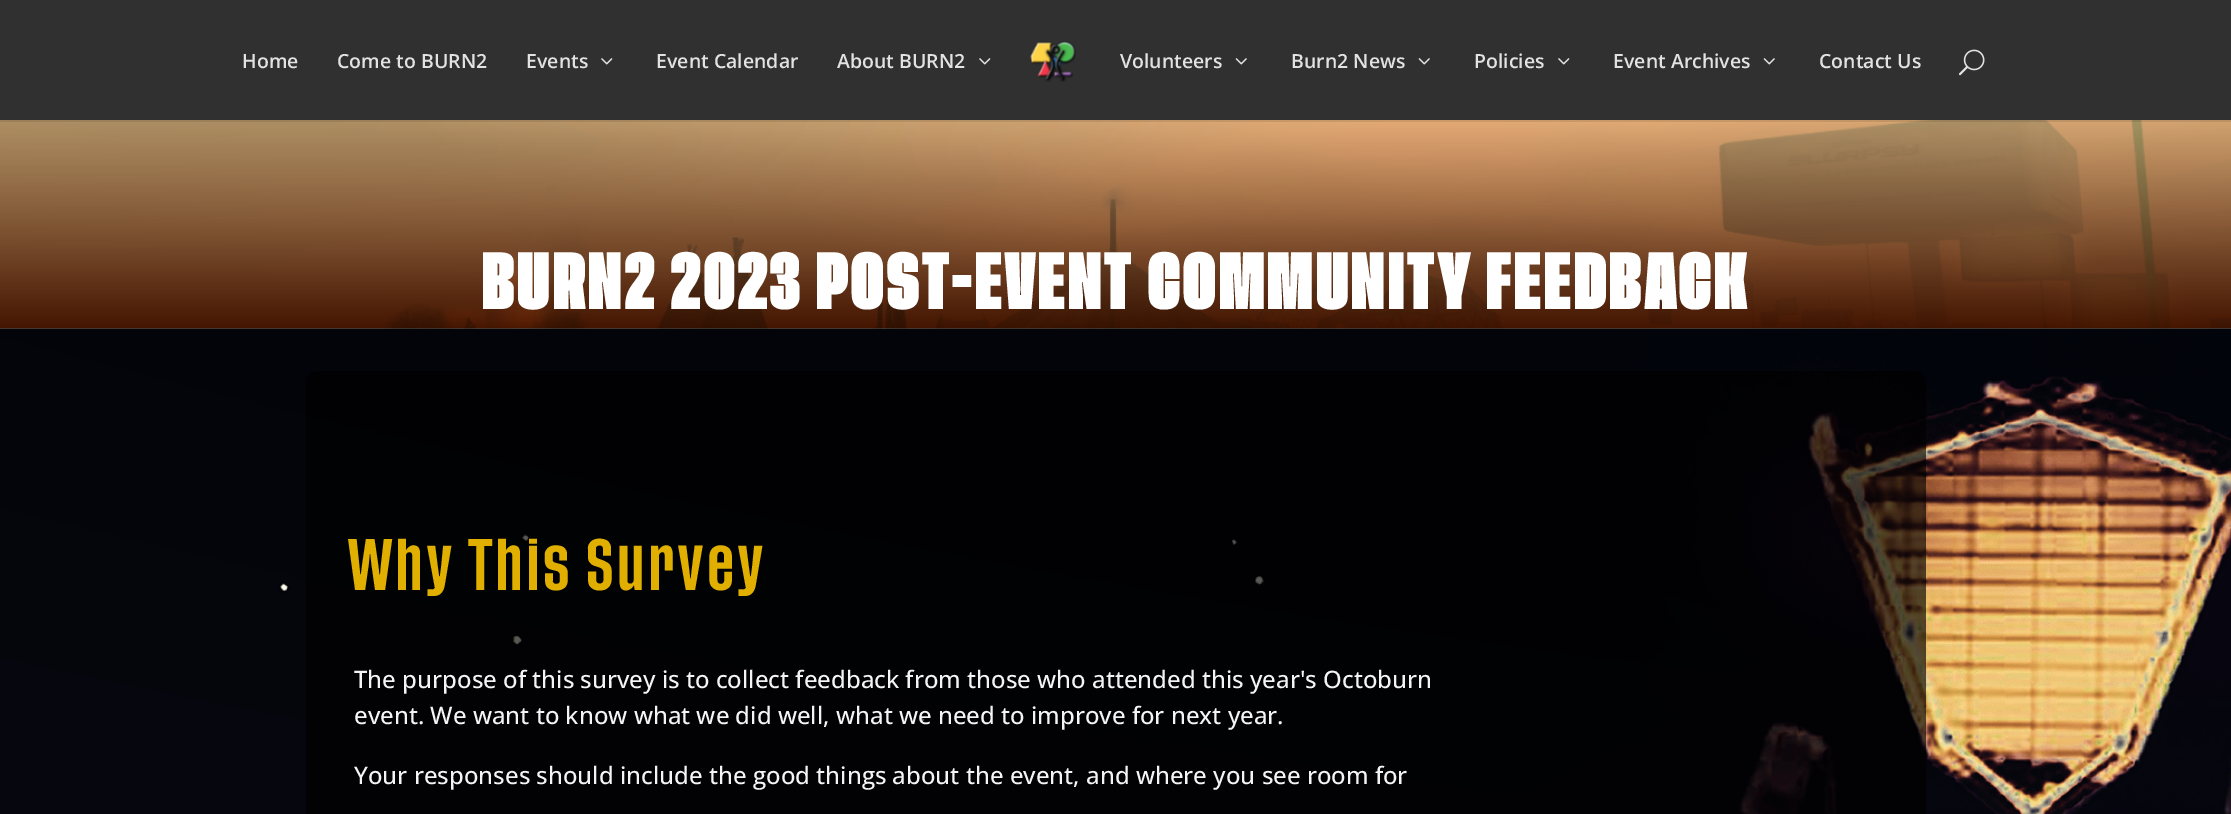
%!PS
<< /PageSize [2231 814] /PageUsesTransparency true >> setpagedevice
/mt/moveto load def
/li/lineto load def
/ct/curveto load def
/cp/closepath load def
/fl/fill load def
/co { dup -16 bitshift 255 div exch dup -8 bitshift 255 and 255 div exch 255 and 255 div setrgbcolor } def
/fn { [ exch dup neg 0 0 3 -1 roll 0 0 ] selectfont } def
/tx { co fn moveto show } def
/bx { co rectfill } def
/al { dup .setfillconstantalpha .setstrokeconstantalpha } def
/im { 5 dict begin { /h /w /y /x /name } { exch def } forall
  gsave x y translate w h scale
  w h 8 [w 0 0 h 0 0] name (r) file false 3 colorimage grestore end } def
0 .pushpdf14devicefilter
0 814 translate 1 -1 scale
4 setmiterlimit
0 0 2231 814 16#FFFFFF bx
(media/5.raw) 0 120 2231 209 im
0.1 al
0 120 2231 2 16#000000 bx
1 al
0 0 2231 120 16#303030 bx
(media/1.raw) 601 58 12 7 im
(media/1.raw) 979 58 12 7 im
(media/2.raw) 1030 41 46 41 im
(media/3.raw) 1235 58 12 7 im
(media/3.raw) 1418 58 12 7 im
(media/1.raw) 1558 58 12 7 im
(media/3.raw) 1763 58 12 7 im
(media/4.raw) 1958 49 27 27 im
(media/6.raw) 0 328 2231 486 im
0.65 al
16#000000 co
318 371 mt 1914 371 li 1920.5 371 1926 376.5 1926 383 ct 1926 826 li 306 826 li 306 383 li 306 376.5 311.5 371 318 371 ct cp fl
1 al
(Home) 242 68 /OpenSans-SemiBold 19.5 16#E2E2E2 tx
(Come to BURN2) 337 68 /OpenSans-SemiBold 19.5 16#E2E2E2 tx
(Events) 526 68 /OpenSans-SemiBold 19.5 16#E2E2E2 tx
(Event Calendar) 656 68 /OpenSans-SemiBold 19.5 16#E2E2E2 tx
(About BURN2) 837 68 /OpenSans-SemiBold 19.5 16#E2E2E2 tx
(Volunteers) 1120 68 /OpenSans-SemiBold 19.5 16#E2E2E2 tx
(Burn2 News) 1291 68 /OpenSans-SemiBold 19.5 16#E2E2E2 tx
(Policies) 1474 68 /OpenSans-SemiBold 19.5 16#E2E2E2 tx
(Event Archives) 1613 68 /OpenSans-SemiBold 19.5 16#E2E2E2 tx
(Contact Us) 1819 68 /OpenSans-SemiBold 19.5 16#E2E2E2 tx
/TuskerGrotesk-ExtraBold 60 fn
16#FFFFFF co
482 309 mt 3 0 (BURN2 2023 POST-EVENT COMMUNITY FEEDBACK) ashow
/TuskerGrotesk-Medium 54 fn
16#E0AF00 co
348 590 mt 3 0 (Why This Survey) ashow
(The purpose of this survey is to collect feedback from those who attended this year's Octoburn) 354 688 /OpenSans-Medium 24 16#F4F4F4 tx
(event. We want to know what we did well, what we need to improve for next year.) 354 724 /OpenSans-Medium 24 16#F4F4F4 tx
(Your responses should include the good things about the event, and where you see room for) 354 784 /OpenSans-Medium 24 16#F4F4F4 tx
.poppdf14devicefilter showpage
